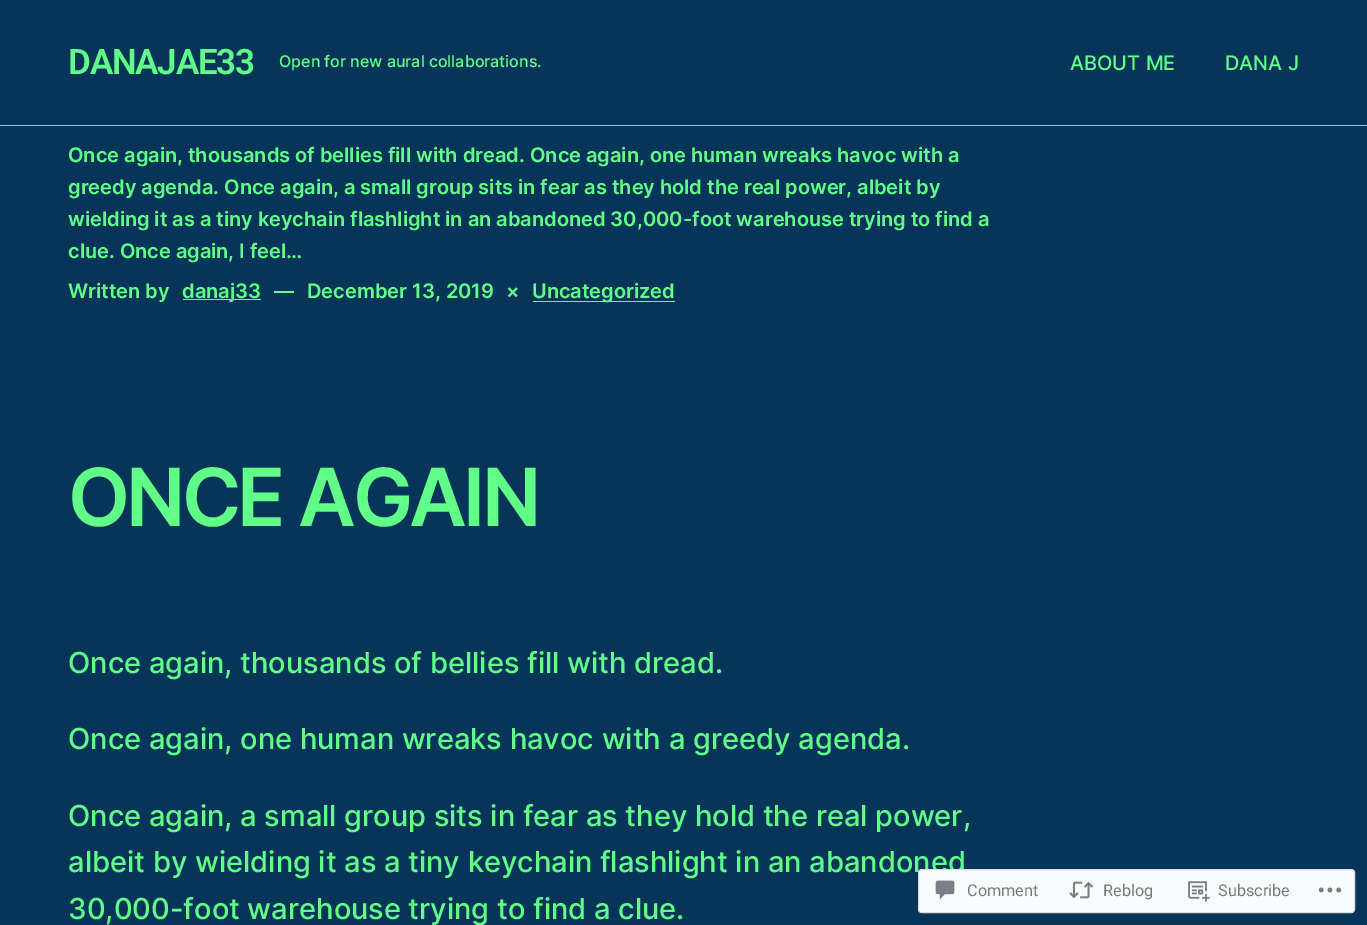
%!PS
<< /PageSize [1367 925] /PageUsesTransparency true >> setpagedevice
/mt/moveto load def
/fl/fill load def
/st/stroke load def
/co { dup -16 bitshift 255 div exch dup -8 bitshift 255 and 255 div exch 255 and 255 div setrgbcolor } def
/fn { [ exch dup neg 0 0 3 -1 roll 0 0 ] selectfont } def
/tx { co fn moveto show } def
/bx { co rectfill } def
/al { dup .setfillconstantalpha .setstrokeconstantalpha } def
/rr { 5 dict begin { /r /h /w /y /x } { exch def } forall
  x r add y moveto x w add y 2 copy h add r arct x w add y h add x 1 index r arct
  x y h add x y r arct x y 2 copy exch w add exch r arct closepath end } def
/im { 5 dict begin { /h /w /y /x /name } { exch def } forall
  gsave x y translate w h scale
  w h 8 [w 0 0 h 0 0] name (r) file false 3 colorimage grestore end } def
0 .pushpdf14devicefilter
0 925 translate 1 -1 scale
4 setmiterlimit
0 0 1367 925 16#063559 bx
0 125 1367 1 16#62FF88 bx
183 299 78 1 16#62FF88 bx
533 301 142 1 16#62FF88 bx
/Roboto-SemiBold 35 fn
68 74 mt -1.25 0 (DANAJAE33) ashow
(Open for new aural collaborations.) 279 67 /Inter-Medium 16 16#62FF88 tx
(ABOUT ME) 1070 70 /Inter-Medium 20 16#62FF88 tx
(DANA J) 1225 70 /Inter-Medium 20 16#62FF88 tx
(Once again, thousands of bellies fill with dread. Once again, one human wreaks havoc with a) 68 162 /Inter-SemiBold 20 16#62FF88 tx
(greedy agenda. Once again, a small group sits in fear as they hold the real power, albeit by) 68 194 /Inter-SemiBold 20 16#62FF88 tx
(wielding it as a tiny keychain flashlight in an abandoned 30,000-foot warehouse trying to find a) 68 226 /Inter-SemiBold 20 16#62FF88 tx
(clue. Once again, I feel…) 68 258 /Inter-SemiBold 20 16#62FF88 tx
(Written by) 68 298 /Inter-SemiBold 20 16#62FF88 tx
(danaj33) 182 298 /Inter-SemiBold 20 16#62FF88 tx
(—) 274 298 /Inter-SemiBold 20 16#62FF88 tx
(December 13, 2019) 307 298 /Inter-SemiBold 20 16#62FF88 tx
(×) 506 298 /Inter-SemiBold 20 16#62FF88 tx
(Uncategorized) 532 298 /Inter-SemiBold 20 16#62FF88 tx
/Inter-SemiBold 80 fn
68 526 mt -3.75 0 (ONCE AGAIN) ashow
(Once again, thousands of bellies fill with dread.) 68 673 /Inter-Medium 29 16#62FF88 tx
(Once again, one human wreaks havoc with a greedy agenda.) 68 749 /Inter-Medium 29 16#62FF88 tx
(Once again, a small group sits in fear as they hold the real power,) 68 826 /Inter-Medium 29 16#62FF88 tx
(albeit by wielding it as a tiny keychain flashlight in an abandoned) 68 872 /Inter-Medium 29 16#62FF88 tx
(30,000-foot warehouse trying to find a clue.) 68 919 /Inter-Medium 29 16#62FF88 tx
0.98 al
16#FFFFFF co
918 869 437 44 4 rr fl
16#DCDCDE co
918.5 869.5 436 43 3.5 rr st
1 al
(media/1.raw) 935 880 20 20 im
(Comment) 967 896 /Roboto-Regular 16.25 16#767B81 tx
(media/2.raw) 1069 881 25 18 im
(Reblog) 1103 896 /Roboto-Regular 16.25 16#767B81 tx
(media/3.raw) 1188 881 22 21 im
(Subscribe) 1218 896 /Roboto-Regular 16.25 16#767B81 tx
(media/4.raw) 1318 887 24 6 im
.poppdf14devicefilter showpage
